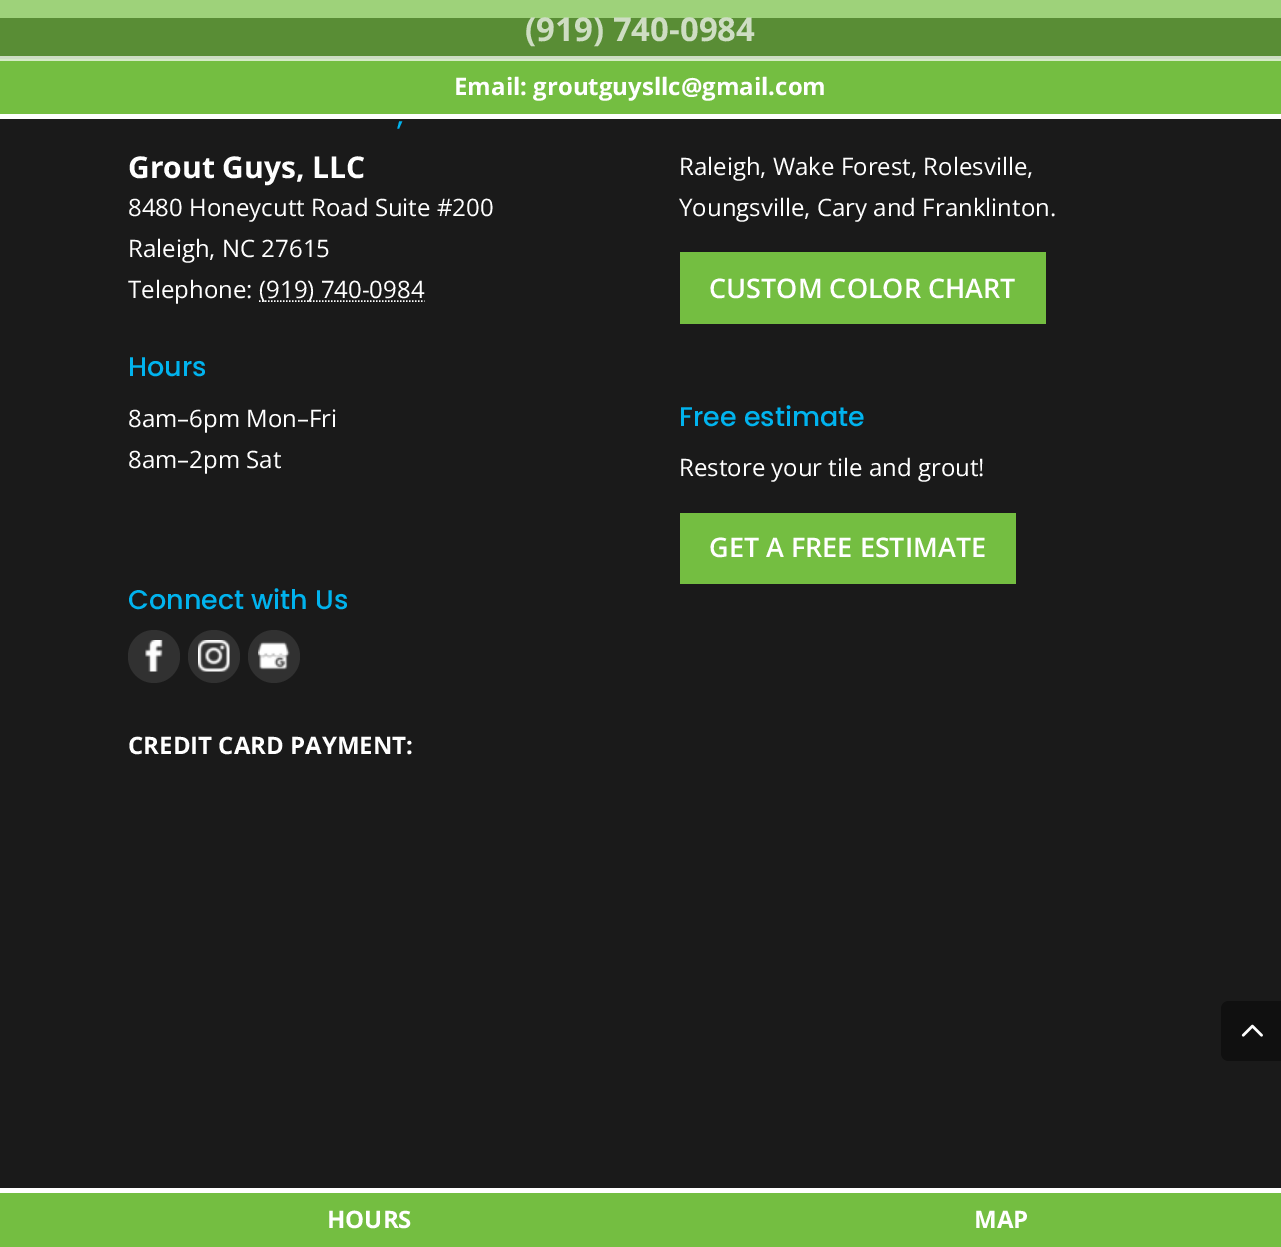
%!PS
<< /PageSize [1281 1247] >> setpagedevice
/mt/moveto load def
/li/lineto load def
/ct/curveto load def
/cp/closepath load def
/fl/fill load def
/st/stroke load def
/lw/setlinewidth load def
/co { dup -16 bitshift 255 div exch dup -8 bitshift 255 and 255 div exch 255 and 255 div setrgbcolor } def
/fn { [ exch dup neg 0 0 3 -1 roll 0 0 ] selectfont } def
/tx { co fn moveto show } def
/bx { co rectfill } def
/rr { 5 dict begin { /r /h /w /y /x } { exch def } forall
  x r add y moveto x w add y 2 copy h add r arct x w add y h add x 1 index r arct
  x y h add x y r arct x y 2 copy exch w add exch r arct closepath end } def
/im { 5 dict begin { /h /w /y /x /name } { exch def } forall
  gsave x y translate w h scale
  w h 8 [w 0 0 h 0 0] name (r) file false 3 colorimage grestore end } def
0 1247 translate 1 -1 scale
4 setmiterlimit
0 0 1281 1247 16#9ED27A bx
0 119 1281 1069 16#1A1A1A bx
0 18 1281 38 16#598D35 bx
0 56 1281 3 16#CDDDC2 bx
0 61 1281 53 16#74BE41 bx
0 59 1281 2 16#D5ECC6 bx
0 114 1281 5 16#FFFFFF bx
0 1193 1281 54 16#74BE41 bx
0 1188 1281 5 16#FFFFFF bx
1.5 lw
[1.5 1.5] 0 setdash
259 301 mt 424.5 301 li st
680 252 366 72 16#74BE41 bx
680 513 336 71 16#74BE41 bx
16#313131 co
128 630 52 53 26 rr fl
(media/1.raw) 145 640 18 32 im
188 630 52 53 26 rr fl
(media/2.raw) 198 640 32 32 im
248 630 52 53 26 rr fl
(media/3.raw) 258 641 32 29 im
16#101010 co
1229 1001 mt 1281 1001 li 1281 1061 li 1229 1061 li 1224.5 1061 1221 1057.5 1221 1053 ct 1221 1009 li 1221 1004.5 1224.5 1001 1229 1001 ct cp fl
(media/4.raw) 1241 1024 22 13 im
(\(919\) 740-0984) 525 41 /OpenSans-Bold 33 16#CEDDC3 tx
(Email: groutguysllc@gmail.com) 454 95 /OpenSans-Bold 24 16#FFFFFF tx
(HOURS) 327 1228 /OpenSans-Bold 24 16#FFFFFF tx
(MAP) 974 1228 /OpenSans-Bold 24 16#FFFFFF tx
(,) 397 125 /Poppins-Medium 27 16#01B3EE tx
(Grout Guys, LLC) 128 178 /OpenSans-Bold 30 16#FFFFFF tx
(8480 Honeycutt Road Suite #200) 128 216 /OpenSans-Regular 24 16#FFFFFF tx
(Raleigh, NC 27615) 128 257 /OpenSans-Regular 24 16#FFFFFF tx
(Telephone:) 128 298 /OpenSans-Regular 24 16#FFFFFF tx
(\(919\) 740-0984) 259 298 /OpenSans-Regular 24 16#FFFFFF tx
(Hours) 128 376 /Poppins-Medium 27 16#01B3EE tx
(8am–6pm Mon–Fri) 128 427 /OpenSans-Regular 24 16#FFFFFF tx
(8am–2pm Sat) 128 468 /OpenSans-Regular 24 16#FFFFFF tx
(Raleigh, Wake Forest, Rolesville,) 679 175 /OpenSans-Regular 24 16#FFFFFF tx
(Youngsville, Cary and Franklinton.) 679 216 /OpenSans-Regular 24 16#FFFFFF tx
(CUSTOM COLOR CHART) 709 298 /OpenSans-SemiBold 27 16#FFFFFF tx
(Free estimate) 679 426 /Poppins-Medium 27 16#01B3EE tx
(Restore your tile and grout!) 679 476 /OpenSans-Regular 24 16#FFFFFF tx
(GET A FREE ESTIMATE) 709 557 /OpenSans-SemiBold 27 16#FFFFFF tx
(Connect with Us) 128 609 /Poppins-Medium 27 16#01B3EE tx
(CREDIT CARD PAYMENT:) 128 754 /OpenSans-Bold 24 16#FFFFFF tx
showpage
